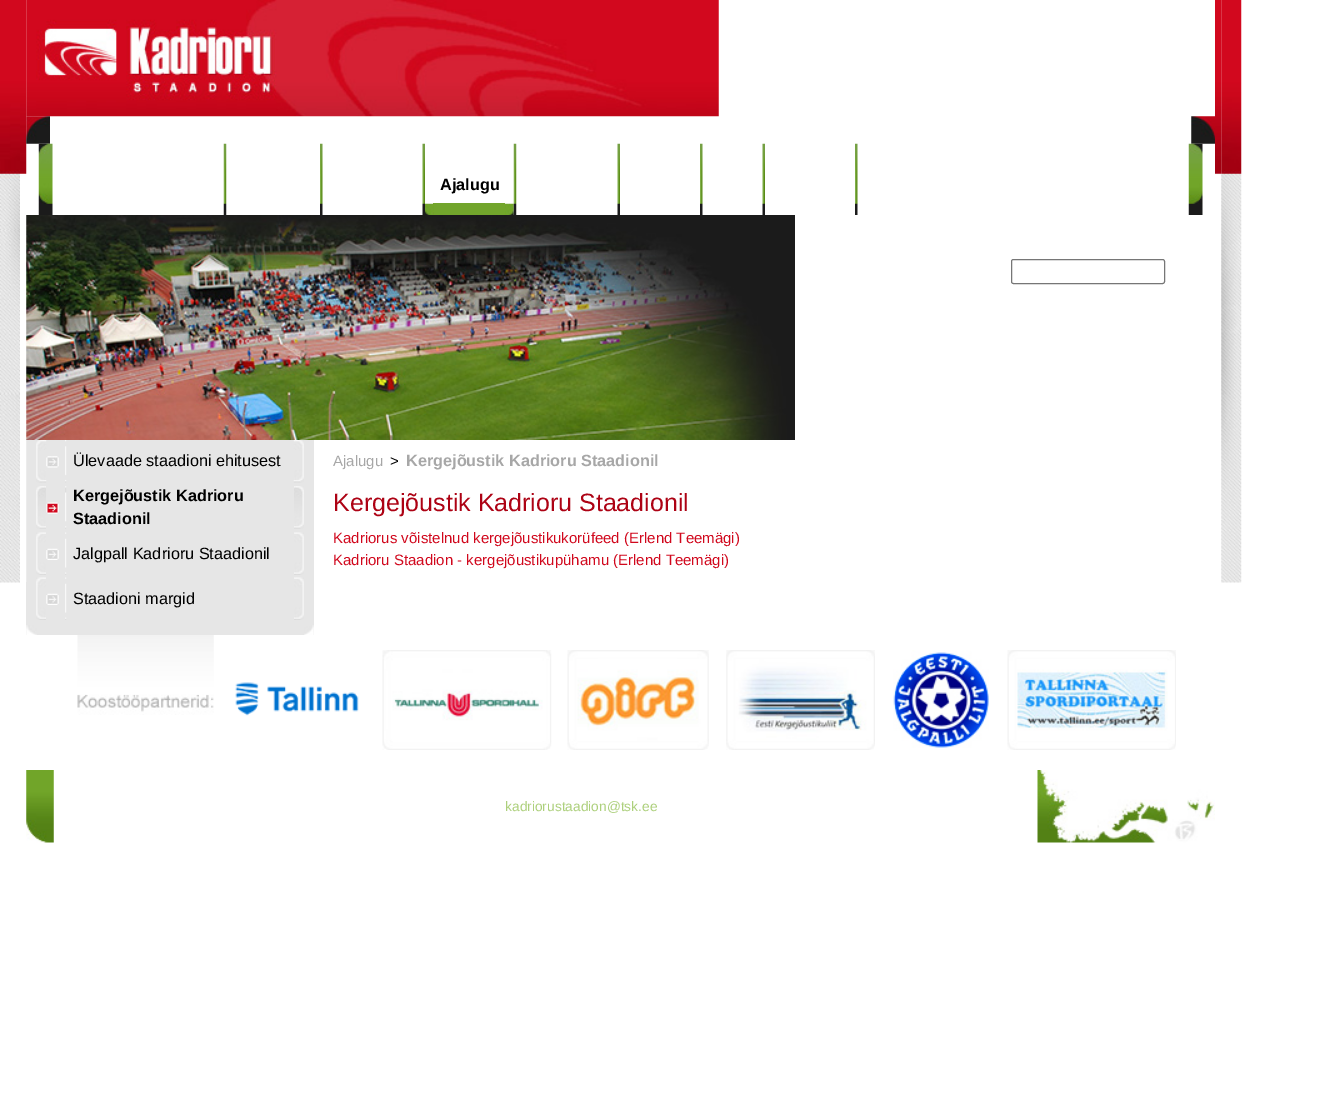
%!PS
<< /PageSize [1343 1120] >> setpagedevice
/st/stroke load def
/co { dup -16 bitshift 255 div exch dup -8 bitshift 255 and 255 div exch 255 and 255 div setrgbcolor } def
/fn { [ exch dup neg 0 0 3 -1 roll 0 0 ] selectfont } def
/tx { co fn moveto show } def
/bx { co rectfill } def
/rr { 5 dict begin { /r /h /w /y /x } { exch def } forall
  x r add y moveto x w add y 2 copy h add r arct x w add y h add x 1 index r arct
  x y h add x y r arct x y 2 copy exch w add exch r arct closepath end } def
/im { 5 dict begin { /h /w /y /x /name } { exch def } forall
  gsave x y translate w h scale
  w h 8 [w 0 0 h 0 0] name (r) file false 3 colorimage grestore end } def
0 1120 translate 1 -1 scale
4 setmiterlimit
0 0 1343 1120 16#FFFFFF bx
(media/1.raw) 0 0 20 583 im
26 440 288 195 16#E6E6E6 bx
(media/2.raw) 20 0 7 582 im
(media/3.raw) 26 0 693 117 im
(media/4.raw) 26 116 24 28 im
(media/5.raw) 1191 116 24 28 im
(media/6.raw) 38 143 15 72 im
(media/7.raw) 223 143 4 72 im
(media/8.raw) 320 143 3 72 im
(media/9.raw) 422 143 3 72 im
433 203 72 12 16#72A52C bx
(media/10.raw) 425 203 9 12 im
(media/11.raw) 505 203 9 12 im
(media/12.raw) 513 143 4 72 im
(media/9.raw) 617 143 3 72 im
(media/8.raw) 700 143 3 72 im
(media/9.raw) 762 143 3 72 im
(media/8.raw) 855 143 3 72 im
(media/13.raw) 1188 143 15 72 im
(media/14.raw) 26 215 769 225 im
16#767676 co
1011.5 259.5 153 24 2 rr st
(media/15.raw) 36 440 11 43 im
(media/16.raw) 46 456 13 12 im
(media/17.raw) 65 440 2 43 im
(media/18.raw) 293 440 11 43 im
(media/19.raw) 36 486 10 43 im
(media/20.raw) 46 502 13 12 im
(media/21.raw) 65 486 2 43 im
(media/22.raw) 294 486 10 43 im
(media/23.raw) 36 532 10 43 im
(media/24.raw) 46 548 13 12 im
(media/25.raw) 65 532 2 43 im
(media/26.raw) 294 532 10 43 im
(media/27.raw) 36 577 10 43 im
(media/24.raw) 46 593 13 12 im
(media/28.raw) 65 577 2 43 im
(media/29.raw) 294 577 10 43 im
(media/30.raw) 26 625 11 10 im
(media/31.raw) 304 625 10 10 im
(media/32.raw) 77 635 137 80 im
(media/33.raw) 235 682 124 34 im
(media/34.raw) 382 650 170 100 im
(media/35.raw) 567 650 142 100 im
(media/36.raw) 726 650 149 100 im
(media/37.raw) 893 650 96 98 im
(media/38.raw) 1007 650 169 100 im
(media/39.raw) 26 770 28 73 im
(media/40.raw) 1037 770 178 73 im
(media/41.raw) 1215 0 7 175 im
(media/42.raw) 1221 0 21 583 im
(Ajalugu) 440 190 /LiberationSans-Bold 16.25 16#000000 tx
(Ülevaade staadioni ehitusest) 73 466 /LiberationSans-Regular 16.25 16#000000 tx
(Kergejõustik Kadrioru) 73 501 /LiberationSans-Bold 16.25 16#000000 tx
(Staadionil) 73 524 /LiberationSans-Bold 16.25 16#000000 tx
(Jalgpall Kadrioru Staadionil) 73 559 /LiberationSans-Regular 16.25 16#000000 tx
(Staadioni margid) 73 604 /LiberationSans-Regular 16.25 16#000000 tx
(Ajalugu) 333 466 /LiberationSans-Regular 15 16#A7A7A7 tx
(>) 390 466 /LiberationSans-Regular 15 16#000000 tx
(Kergejõustik Kadrioru Staadionil) 406 466 /LiberationSans-Bold 16.25 16#A7A7A7 tx
(Kergejõustik Kadrioru Staadionil) 333 511 /LiberationSans-Regular 25 16#AD0214 tx
(Kadriorus võistelnud kergejõustikukorüfeed \(Erlend Teemägi\)) 333 543 /LiberationSans-Regular 15 16#D1081D tx
(Kadrioru Staadion - kergejõustikupühamu \(Erlend Teemägi\)) 333 565 /LiberationSans-Regular 15 16#D1081D tx
(kadriorustaadion@tsk.ee) 505 811 /LiberationSans-Regular 13.75 16#ADD07C tx
showpage
